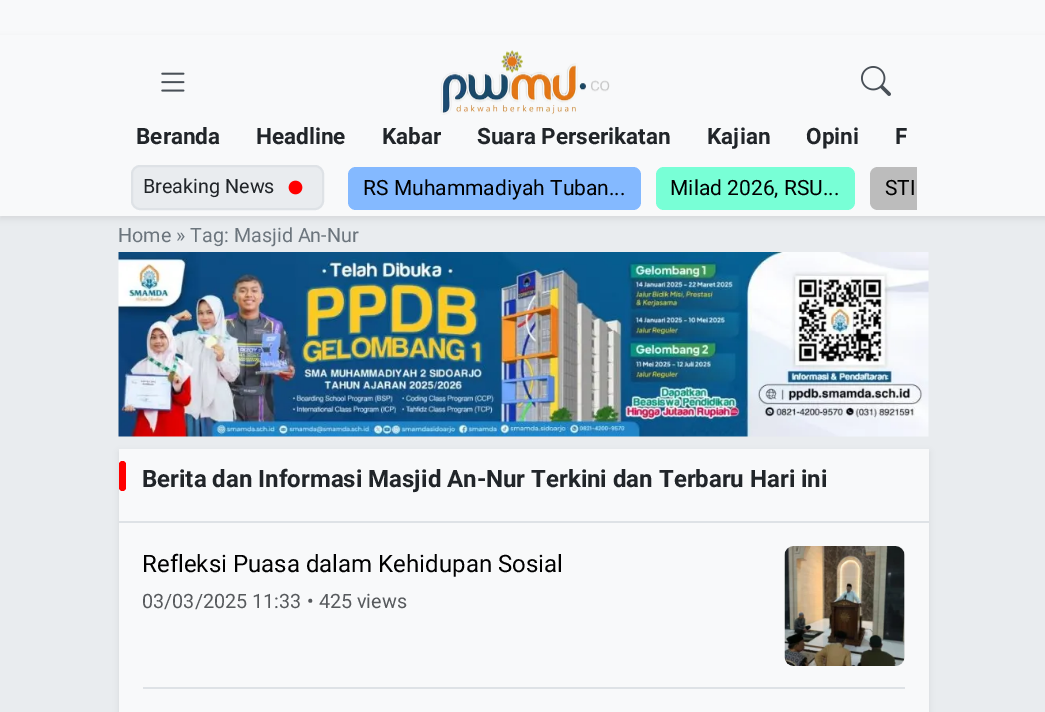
%!PS
<< /PageSize [1045 712] /PageUsesTransparency true >> setpagedevice
/mt/moveto load def
/li/lineto load def
/ct/curveto load def
/cp/closepath load def
/fl/fill load def
/st/stroke load def
/gs/gsave load def
/gr/grestore load def
/lw/setlinewidth load def
/co { dup -16 bitshift 255 div exch dup -8 bitshift 255 and 255 div exch 255 and 255 div setrgbcolor } def
/fn { [ exch dup neg 0 0 3 -1 roll 0 0 ] selectfont } def
/tx { co fn moveto show } def
/bx { co rectfill } def
/al { dup .setfillconstantalpha .setstrokeconstantalpha } def
/rr { 5 dict begin { /r /h /w /y /x } { exch def } forall
  x r add y moveto x w add y 2 copy h add r arct x w add y h add x 1 index r arct
  x y h add x y r arct x y 2 copy exch w add exch r arct closepath end } def
/sh { 12 dict begin { /a /b /q /h /w /y /x } { exch def } forall gsave /was 0 def
  9 -2 -9 { dup b mul 4 div /e exch def 1 sub .425 mul 2.718 exch exp 1 add a .99 .min exch div /now exch def
    1 1 now sub 1 was sub div sub al /was now def
    w h .min e 2 mul add 0 gt { x e sub y e sub w e 2 mul add h e 2 mul add
      q e add b .6 mul add w h .min 2 div e add .min 0 .max rr fill } if } for grestore end } def
/im { 5 dict begin { /h /w /y /x /name } { exch def } forall
  gsave x y translate w h scale
  w h 8 [w 0 0 h 0 0] name (r) file false 3 colorimage grestore end } def
0 .pushpdf14devicefilter
0 712 translate 1 -1 scale
4 setmiterlimit
0 0 1045 712 16#F8F9FA bx
0 216 1045 496 16#E9ECEF bx
16#000000 co
0 38 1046 181 0 3 .07 sh
0 35 1045 181 16#F8F9FA bx
(media/1.raw) 161 72 24 20 im
(media/2.raw) 440 50 170 65 im
(media/3.raw) 861 66 30 30 im
16#E9ECEF co
132 166 191 43 8 rr gs fl gr
16#DEE2E6 co
2 lw
st
(media/4.raw) 288 180 15 15 im
16#84B9FF co
348 167 293 43 8 rr fl
16#78FFD6 co
656 167 199 43 8 rr fl
16#BCBCBC co
878 167 mt 917 167 li 917 210 li 878 210 li 873.5 210 870 206.5 870 202 ct 870 175 li 870 170.5 873.5 167 878 167 ct cp fl
(media/5.raw) 118 252 811 185 im
16#000000 co
119 452 810 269 0 3 .07 sh
119 449 810 263 16#F8F9FA bx
119 521 810 2 16#DEE2E6 bx
16#FF0000 co
119 461 7 30 3.5 rr fl
143 687 762 2 16#DEE2E6 bx
16#E9E9E9 co
785 546 120 120 9 rr fl
(media/6.raw) 784 546 121 120 im
(Beranda) 136 144 /Heebo-Bold 22.5 16#212529 tx
(Headline) 256 144 /Heebo-Bold 22.5 16#212529 tx
(Kabar) 382 144 /Heebo-Bold 22.5 16#212529 tx
(Suara Perserikatan) 477 144 /Heebo-Bold 22.5 16#212529 tx
(Kajian) 707 144 /Heebo-Bold 22.5 16#212529 tx
(Opini) 806 144 /Heebo-Bold 22.5 16#212529 tx
(F) 895 144 /Heebo-Bold 22.5 16#212529 tx
(Breaking News) 143 193 /Heebo-Regular 19.75 16#212529 tx
(RS Muhammadiyah Tuban...) 363 195 /Heebo-Regular 21 16#000000 tx
(Milad 2026, RSU...) 670 195 /Heebo-Regular 21 16#000000 tx
(STI) 885 195 /Heebo-Regular 21 16#000000 tx
(Home » Tag: Masjid An-Nur) 118 242 /Heebo-Regular 19.75 16#6C757D tx
(Berita dan Informasi Masjid An-Nur Terkini dan Terbaru Hari ini) 142 487 /Heebo-Bold 24 16#212529 tx
(Refleksi Puasa dalam Kehidupan Sosial) 142 572 /Heebo-Regular 24 16#000000 tx
(03/03/2025) 142 608 /Heebo-Regular 19.75 16#575A5D tx
(11:33) 252 608 /Heebo-Regular 19.75 16#575A5D tx
(• 425 views) 307 608 /Heebo-Regular 19.75 16#575A5D tx
.poppdf14devicefilter showpage
